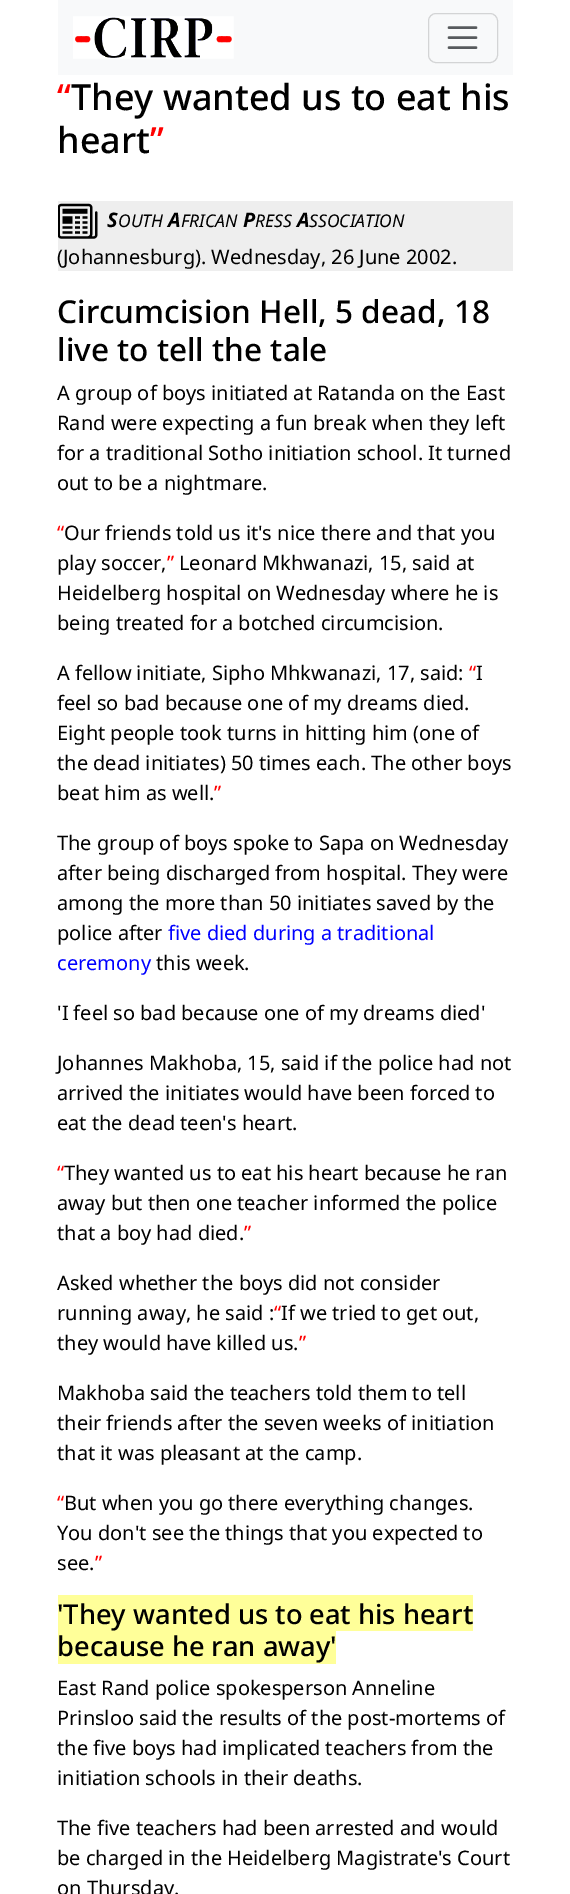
%!PS
<< /PageSize [570 1894] >> setpagedevice
/mt/moveto load def
/li/lineto load def
/st/stroke load def
/lw/setlinewidth load def
/co { dup -16 bitshift 255 div exch dup -8 bitshift 255 and 255 div exch 255 and 255 div setrgbcolor } def
/fn { [ exch dup neg 0 0 3 -1 roll 0 0 ] selectfont } def
/tx { co fn moveto show } def
/bx { co rectfill } def
/rr { 5 dict begin { /r /h /w /y /x } { exch def } forall
  x r add y moveto x w add y 2 copy h add r arct x w add y h add x 1 index r arct
  x y h add x y r arct x y 2 copy exch w add exch r arct closepath end } def
/im { 5 dict begin { /h /w /y /x /name } { exch def } forall
  gsave x y translate w h scale
  w h 8 [w 0 0 h 0 0] name (r) file false 3 colorimage grestore end } def
0 1894 translate 1 -1 scale
4 setmiterlimit
0 0 570 1894 16#FFFFFF bx
58 0 455 75 16#F8F9FA bx
(media/1.raw) 73 16 161 43 im
16#D3D4D5 co
428.5 13.5 69 49 7.5 rr st
16#575A5D co
2.5 lw
1 setlinecap
449 27.5 mt 476 27.5 li 449 37.5 mt 476 37.5 li 449 47.5 mt 476 47.5 li st
58 201 455 70 16#EEEEEE bx
(media/2.raw) 58 203 40 36 im
58 1595 415 36 16#FFFF99 bx
58 1631 278 33 16#FFFF99 bx
(“) 57 110 /NotoSans-Medium 36 16#FF0000 tx
(They wanted us to eat his) 71 110 /NotoSans-Medium 36 16#000000 tx
(heart) 57 153 /NotoSans-Medium 36 16#000000 tx
(”) 150 153 /NotoSans-Medium 36 16#FF0000 tx
(S) 107 227 /NotoSans-BoldItalic 20 16#000000 tx
(OUTH) 118 227 /NotoSans-Italic 17.5 16#000000 tx
(A) 168 227 /NotoSans-BoldItalic 20 16#000000 tx
(FRICAN) 181 227 /NotoSans-Italic 17.5 16#000000 tx
(P) 243 227 /NotoSans-BoldItalic 20 16#000000 tx
(RESS) 255 227 /NotoSans-Italic 17.5 16#000000 tx
(A) 297 227 /NotoSans-BoldItalic 20 16#000000 tx
(SSOCIATION) 309 227 /NotoSans-Italic 17.5 16#000000 tx
(\(Johannesburg\). Wednesday, 26 June 2002.) 57 264 /NotoSans-Regular 20 16#000000 tx
(Circumcision Hell, 5 dead, 18) 57 323 /NotoSans-Medium 31.6 16#000000 tx
(live to tell the tale) 57 361 /NotoSans-Medium 31.6 16#000000 tx
(A group of boys initiated at Ratanda on the East) 57 400 /NotoSans-Regular 20 16#000000 tx
(Rand were expecting a fun break when they left) 57 430 /NotoSans-Regular 20 16#000000 tx
(for a traditional Sotho initiation school. It turned) 57 460 /NotoSans-Regular 20 16#000000 tx
(out to be a nightmare.) 57 490 /NotoSans-Regular 20 16#000000 tx
(“) 57 540 /NotoSans-Regular 20 16#FF0000 tx
(Our friends told us it's nice there and that you) 64 540 /NotoSans-Regular 20 16#000000 tx
(play soccer,) 57 570 /NotoSans-Regular 20 16#000000 tx
(”) 167 570 /NotoSans-Regular 20 16#FF0000 tx
(Leonard Mkhwanazi, 15, said at) 179 570 /NotoSans-Regular 20 16#000000 tx
(Heidelberg hospital on Wednesday where he is) 57 600 /NotoSans-Regular 20 16#000000 tx
(being treated for a botched circumcision.) 57 630 /NotoSans-Regular 20 16#000000 tx
(A fellow initiate, Sipho Mhkwanazi, 17, said:) 57 680 /NotoSans-Regular 20 16#000000 tx
(“) 469 680 /NotoSans-Regular 20 16#FF0000 tx
(I) 476 680 /NotoSans-Regular 20 16#000000 tx
(feel so bad because one of my dreams died.) 57 710 /NotoSans-Regular 20 16#000000 tx
(Eight people took turns in hitting him \(one of) 57 740 /NotoSans-Regular 20 16#000000 tx
(the dead initiates\) 50 times each. The other boys) 57 770 /NotoSans-Regular 20 16#000000 tx
(beat him as well.) 57 800 /NotoSans-Regular 20 16#000000 tx
(”) 214 800 /NotoSans-Regular 20 16#FF0000 tx
(The group of boys spoke to Sapa on Wednesday) 57 850 /NotoSans-Regular 20 16#000000 tx
(after being discharged from hospital. They were) 57 880 /NotoSans-Regular 20 16#000000 tx
(among the more than 50 initiates saved by the) 57 910 /NotoSans-Regular 20 16#000000 tx
(police after) 57 940 /NotoSans-Regular 20 16#000000 tx
(five died during a traditional) 168 940 /NotoSans-Regular 20 16#0000FF tx
(ceremony) 57 970 /NotoSans-Regular 20 16#0000FF tx
(this week.) 156 970 /NotoSans-Regular 20 16#000000 tx
('I feel so bad because one of my dreams died') 57 1020 /NotoSans-Regular 20 16#000000 tx
(Johannes Makhoba, 15, said if the police had not) 57 1070 /NotoSans-Regular 20 16#000000 tx
(arrived the initiates would have been forced to) 57 1100 /NotoSans-Regular 20 16#000000 tx
(eat the dead teen's heart.) 57 1130 /NotoSans-Regular 20 16#000000 tx
(“) 57 1180 /NotoSans-Regular 20 16#FF0000 tx
(They wanted us to eat his heart because he ran) 64 1180 /NotoSans-Regular 20 16#000000 tx
(away but then one teacher informed the police) 57 1210 /NotoSans-Regular 20 16#000000 tx
(that a boy had died.) 57 1240 /NotoSans-Regular 20 16#000000 tx
(”) 244 1240 /NotoSans-Regular 20 16#FF0000 tx
(Asked whether the boys did not consider) 57 1290 /NotoSans-Regular 20 16#000000 tx
(running away, he said :) 57 1320 /NotoSans-Regular 20 16#000000 tx
(“) 274 1320 /NotoSans-Regular 20 16#FF0000 tx
(If we tried to get out,) 281 1320 /NotoSans-Regular 20 16#000000 tx
(they would have killed us.) 57 1350 /NotoSans-Regular 20 16#000000 tx
(”) 299 1350 /NotoSans-Regular 20 16#FF0000 tx
(Makhoba said the teachers told them to tell) 57 1400 /NotoSans-Regular 20 16#000000 tx
(their friends after the seven weeks of initiation) 57 1430 /NotoSans-Regular 20 16#000000 tx
(that it was pleasant at the camp.) 57 1460 /NotoSans-Regular 20 16#000000 tx
(“) 57 1510 /NotoSans-Regular 20 16#FF0000 tx
(But when you go there everything changes.) 64 1510 /NotoSans-Regular 20 16#000000 tx
(You don't see the things that you expected to) 57 1540 /NotoSans-Regular 20 16#000000 tx
(”) 95 1570 /NotoSans-Regular 20 16#FF0000 tx
(see.) 57 1570 /NotoSans-Regular 20 16#000000 tx
('They wanted us to eat his heart) 57 1624 /NotoSans-Medium 27.25 16#000000 tx
(because he ran away') 57 1656 /NotoSans-Medium 27.25 16#000000 tx
(East Rand police spokesperson Anneline) 57 1695 /NotoSans-Regular 20 16#000000 tx
(Prinsloo said the results of the post-mortems of) 57 1725 /NotoSans-Regular 20 16#000000 tx
(the five boys had implicated teachers from the) 57 1755 /NotoSans-Regular 20 16#000000 tx
(initiation schools in their deaths.) 57 1785 /NotoSans-Regular 20 16#000000 tx
(The five teachers had been arrested and would) 57 1835 /NotoSans-Regular 20 16#000000 tx
(be charged in the Heidelberg Magistrate's Court) 57 1865 /NotoSans-Regular 20 16#000000 tx
(on Thursday.) 57 1895 /NotoSans-Regular 20 16#000000 tx
showpage
